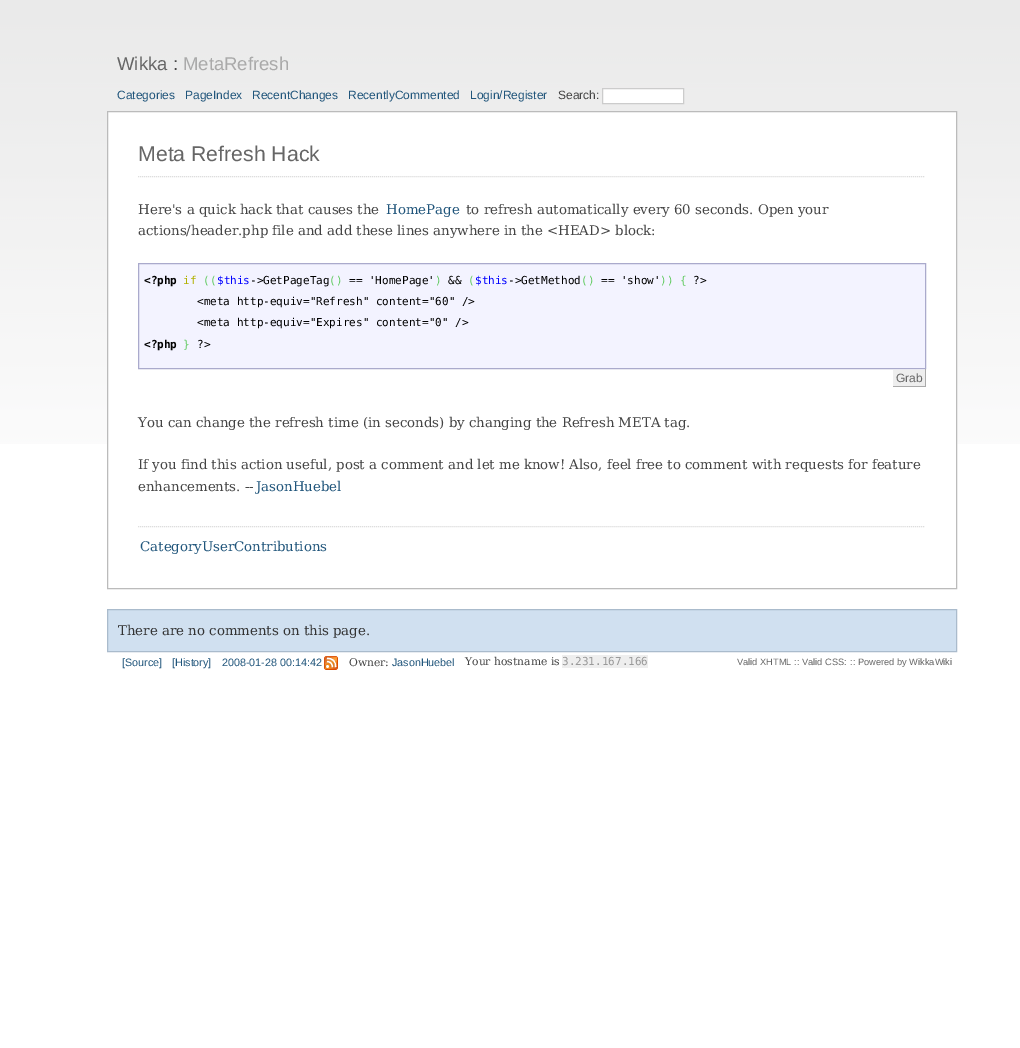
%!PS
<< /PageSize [1020 1048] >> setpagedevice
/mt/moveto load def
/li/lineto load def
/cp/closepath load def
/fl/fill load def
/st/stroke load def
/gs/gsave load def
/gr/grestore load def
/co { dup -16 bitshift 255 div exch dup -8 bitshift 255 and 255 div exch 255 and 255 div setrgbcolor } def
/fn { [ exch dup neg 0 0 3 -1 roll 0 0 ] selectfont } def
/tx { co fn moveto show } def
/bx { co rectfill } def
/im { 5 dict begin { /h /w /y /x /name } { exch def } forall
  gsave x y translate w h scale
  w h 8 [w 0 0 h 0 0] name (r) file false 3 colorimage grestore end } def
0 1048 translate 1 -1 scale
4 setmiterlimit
0 0 1020 1048 16#FFFFFF bx
(media/1.raw) 0 0 1020 444 im
602.5 88.5 mt 683.5 88.5 li 683.5 103.5 li 602.5 103.5 li cp gs fl gr
16#CCCCCC co
st
108 112 848 332 16#FFFFFF bx
16#BBBBBB co
107.5 111.5 849 477 rectstroke
16#DDDDDD co
[1 1] 0 setdash
138 176.5 mt 926 176.5 li st
16#F3F3FF co
138.5 263.5 mt 925.5 263.5 li 925.5 368.5 li 138.5 368.5 li cp gs fl gr
16#AAAACC co
[] 0 setdash
st
893 370 32 16 16#EEEEEE bx
925 369 1 18 16#AAAAAA bx
892 386 34 1 16#AAAAAA bx
892 386 1 1 16#FFFFFF bx
16#DDDDDD co
[1 1] 0 setdash
138 526.5 mt 926 526.5 li st
16#D0E0F0 co
107.5 609.5 mt 956.5 609.5 li 956.5 651.5 li 107.5 651.5 li cp gs fl gr
16#AABBCC co
[] 0 setdash
st
(media/2.raw) 324 656 14 14 im
562 655 86 13 16#EEEEEE bx
(Wikka) 117 70 /LiberationSans-Regular 18.5 16#666666 tx
(:) 173 70 /LiberationSans-Regular 18.5 16#444444 tx
(MetaRefresh) 183 70 /LiberationSans-Regular 18.5 16#AAAAAA tx
(Categories) 117 99 /LiberationSans-Regular 12 16#20557B tx
(PageIndex) 185 99 /LiberationSans-Regular 12 16#20557B tx
(RecentChanges) 252 99 /LiberationSans-Regular 12 16#20557B tx
(RecentlyCommented) 348 99 /LiberationSans-Regular 12 16#20557B tx
(Login/Register) 470 99 /LiberationSans-Regular 12 16#20557B tx
(Search:) 558 99 /LiberationSans-Regular 12 16#444444 tx
(Meta Refresh Hack) 138 161 /LiberationSans-Regular 21.25 16#666666 tx
(Here's a quick hack that causes the) 138 214 /DejaVuSerif-Regular 13.33 16#444444 tx
(HomePage) 386 214 /DejaVuSerif-Regular 13.33 16#20557B tx
(to refresh automatically every 60 seconds. Open your) 466 214 /DejaVuSerif-Regular 13.33 16#444444 tx
(actions/header.php file and add these lines anywhere in the <HEAD> block:) 138 235 /DejaVuSerif-Regular 13.33 16#444444 tx
(<?php) 144 284 /DejaVuSansMono-Bold 11 16#000000 tx
(if) 183 284 /DejaVuSansMono-Regular 11 16#B1B100 tx
(\(\() 203 284 /DejaVuSansMono-Regular 11 16#66CC66 tx
($this) 217 284 /DejaVuSansMono-Regular 11 16#0000FF tx
(->GetPageTag) 250 284 /DejaVuSansMono-Regular 11 16#000000 tx
(\(\)) 329 284 /DejaVuSansMono-Regular 11 16#66CC66 tx
(== 'HomePage') 349 284 /DejaVuSansMono-Regular 11 16#000000 tx
(\)) 435 284 /DejaVuSansMono-Regular 11 16#66CC66 tx
(&&) 448 284 /DejaVuSansMono-Regular 11 16#000000 tx
(\() 468 284 /DejaVuSansMono-Regular 11 16#66CC66 tx
($this) 475 284 /DejaVuSansMono-Regular 11 16#0000FF tx
(->GetMethod) 508 284 /DejaVuSansMono-Regular 11 16#000000 tx
(\(\)) 581 284 /DejaVuSansMono-Regular 11 16#66CC66 tx
(== 'show') 601 284 /DejaVuSansMono-Regular 11 16#000000 tx
(\)\) {) 660 284 /DejaVuSansMono-Regular 11 16#66CC66 tx
(?>) 693 284 /DejaVuSansMono-Regular 11 16#000000 tx
(<meta http-equiv="Refresh" content="60" />) 197 305 /DejaVuSansMono-Regular 11 16#000000 tx
(<meta http-equiv="Expires" content="0" />) 197 326 /DejaVuSansMono-Regular 11 16#000000 tx
(<?php) 144 348 /DejaVuSansMono-Bold 11 16#000000 tx
(}) 183 348 /DejaVuSansMono-Regular 11 16#66CC66 tx
(?>) 197 348 /DejaVuSansMono-Regular 11 16#000000 tx
(Grab) 896 382 /LiberationSans-Regular 12 16#666666 tx
(You can change the refresh time \(in seconds\) by changing the Refresh META tag.) 138 427 /DejaVuSerif-Regular 13.33 16#444444 tx
(If you find this action useful, post a comment and let me know! Also, feel free to comment with requests for feature) 138 469 /DejaVuSerif-Regular 13.33 16#444444 tx
(enhancements. --) 138 491 /DejaVuSerif-Regular 13.33 16#444444 tx
(JasonHuebel) 256 491 /DejaVuSerif-Regular 13.33 16#20557B tx
(CategoryUserContributions) 140 551 /DejaVuSerif-Regular 13.33 16#20557B tx
(There are no comments on this page.) 118 635 /DejaVuSerif-Regular 13.33 16#333333 tx
([Source]) 122 666 /LiberationSans-Regular 10.75 16#20557B tx
([History]) 172 666 /LiberationSans-Regular 10.75 16#20557B tx
(2008-01-28 00:14:42) 222 666 /LiberationSans-Regular 10.75 16#20557B tx
(Owner:) 349 666 /DejaVuSerif-Regular 10.75 16#444444 tx
(JasonHuebel) 392 666 /LiberationSans-Regular 10.75 16#20557B tx
(Your hostname is) 465 665 /DejaVuSerif-Regular 10.75 16#444444 tx
(3.231.167.166) 562 665 /DejaVuSansMono-Regular 11 16#999999 tx
(Valid XHTML) 737 665 /LiberationSans-Regular 9.25 16#666666 tx
(::) 794 665 /LiberationSans-Regular 9.25 16#777777 tx
(Valid CSS:) 802 665 /LiberationSans-Regular 9.25 16#666666 tx
(::) 850 665 /LiberationSans-Regular 9.25 16#777777 tx
(Powered by WikkaWiki) 858 665 /LiberationSans-Regular 9.25 16#666666 tx
showpage
